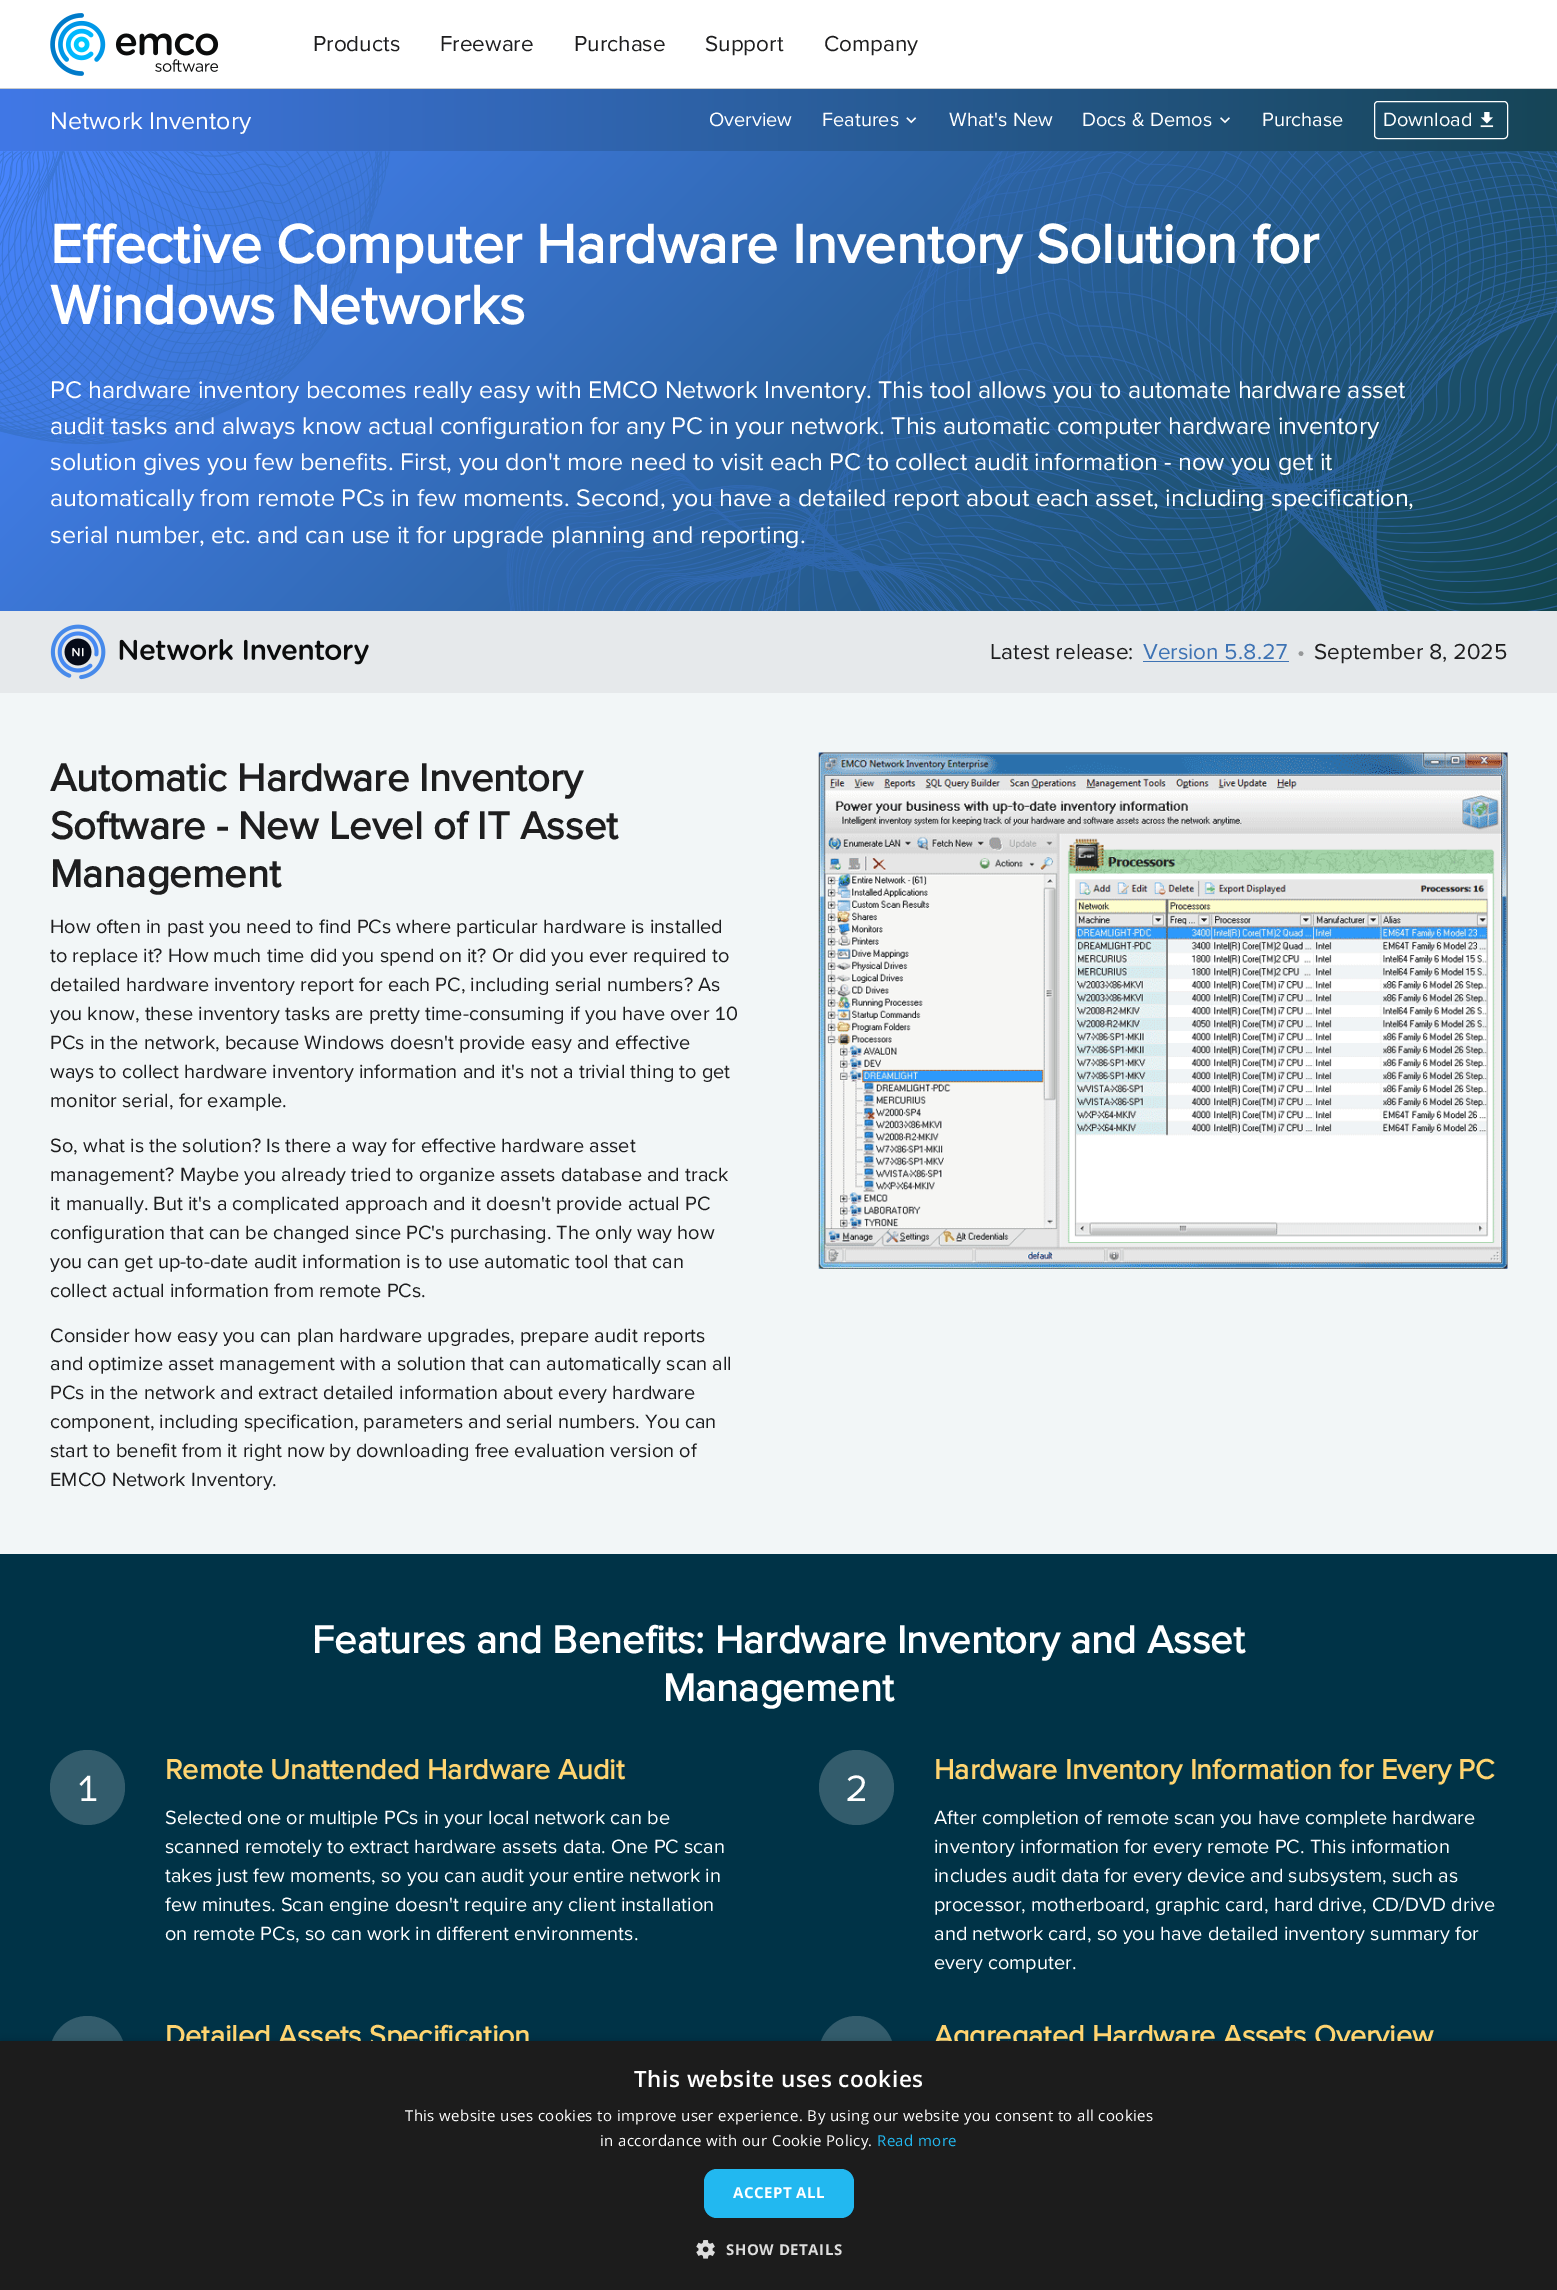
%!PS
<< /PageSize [1557 2290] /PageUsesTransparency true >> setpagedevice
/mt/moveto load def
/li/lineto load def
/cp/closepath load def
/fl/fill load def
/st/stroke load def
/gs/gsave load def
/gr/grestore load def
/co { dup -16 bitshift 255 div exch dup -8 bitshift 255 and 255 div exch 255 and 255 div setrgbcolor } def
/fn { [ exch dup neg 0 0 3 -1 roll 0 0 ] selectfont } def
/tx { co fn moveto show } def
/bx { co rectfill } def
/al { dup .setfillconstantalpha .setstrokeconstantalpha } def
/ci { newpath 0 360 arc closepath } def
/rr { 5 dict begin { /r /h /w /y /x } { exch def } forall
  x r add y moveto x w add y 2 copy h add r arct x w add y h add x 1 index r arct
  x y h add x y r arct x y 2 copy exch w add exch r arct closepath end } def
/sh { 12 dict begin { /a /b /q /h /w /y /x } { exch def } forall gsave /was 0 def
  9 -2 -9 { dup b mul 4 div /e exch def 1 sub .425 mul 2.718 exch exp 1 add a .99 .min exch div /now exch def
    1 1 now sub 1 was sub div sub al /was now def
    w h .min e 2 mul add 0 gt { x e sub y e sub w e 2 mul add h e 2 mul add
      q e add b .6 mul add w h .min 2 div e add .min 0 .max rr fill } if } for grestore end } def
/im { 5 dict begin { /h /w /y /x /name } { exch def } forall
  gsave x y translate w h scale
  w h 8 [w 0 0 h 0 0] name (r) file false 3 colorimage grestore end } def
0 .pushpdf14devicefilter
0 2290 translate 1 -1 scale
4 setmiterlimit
0 0 1557 2290 16#FFFFFF bx
0 88 1557 1 16#C8CBCC bx
(media/1.raw) 50 13 169 63 im
gs 0 89 mt 1557 89 li 1557 151 li 0 151 li cp clip newpath
<< /ShadingType 2 /ColorSpace /DeviceRGB /Coords [0 120 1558 120] /Extend [true true] /Function << /FunctionType 2 /Domain [0 1] /C0 [.255 .471 .902] /C1 [.086 .271 .341] /N 1 >> >> shfill gr
(media/2.raw) 906 117 11 7 im
(media/3.raw) 1220 117 10 7 im
16#FFFFFF co
1374.5 101.5 133 37 3.5 rr st
(media/4.raw) 1480 112 14 16 im
gs 0 151 mt 1557 151 li 1557 611 li 0 611 li cp clip newpath
<< /ShadingType 2 /ColorSpace /DeviceRGB /Coords [274 -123 1283 886] /Extend [true true] /Function << /FunctionType 2 /Domain [0 1] /C0 [.282 .522 1] /C1 [.071 .267 .298] /N 1 >> >> shfill gr
(media/5.raw) 0 151 1557 460 im
0 611 1557 82 16#E6E9EB bx
(media/6.raw) 50 624 319 56 im
1143 661 146 1 16#3E73B4 bx
0 693 1557 861 16#F2F6F7 bx
(media/7.raw) 818 752 690 517 im
0 1554 1557 487 16#003347 bx
16#335C6C co
87.5 1787.5 37.5 ci fl
856.5 1787.5 37.5 ci fl
87.5 2053.5 37.5 ci fl
856.5 2053.5 37.5 ci fl
16#000000 co
1 2044 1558 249 0 5 .35 sh
(Products) 313 51 /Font-Regular 22.5 16#1E1E1F tx
(Freeware) 440 51 /Font-Regular 22.5 16#1E1E1F tx
(Purchase) 574 51 /Font-Regular 22.5 16#1E1E1F tx
(Support) 705 51 /Font-Regular 22.5 16#1E1E1F tx
(Company) 824 51 /Font-Regular 22.5 16#1E1E1F tx
(Network Inventory) 50 129 /Font-Regular 25 16#FFFFFF tx
(Overview) 709 126 /Font-Regular 20 16#FFFFFF tx
(Features) 822 126 /Font-Regular 20 16#FFFFFF tx
(What's New) 949 126 /Font-Regular 20 16#FFFFFF tx
(Docs & Demos) 1082 126 /Font-Regular 20 16#FFFFFF tx
(Purchase) 1262 126 /Font-Regular 20 16#FFFFFF tx
(Download) 1383 126 /Font-Regular 20 16#FFFFFF tx
(Effective Computer Hardware Inventory Solution for) 50 263 /Font-Bold 56.25 16#FFFFFF tx
(Windows Networks) 50 324 /Font-Bold 56.25 16#FFFFFF tx
(PC hardware inventory becomes really easy with EMCO Network Inventory. This tool allows you to automate hardware asset) 50 398 /Font-Regular 25 16#FFFFFF tx
(audit tasks and always know actual configuration for any PC in your network. This automatic computer hardware inventory) 50 434 /Font-Regular 25 16#FFFFFF tx
(solution gives you few benefits. First, you don't more need to visit each PC to collect audit information - now you get it) 50 470 /Font-Regular 25 16#FFFFFF tx
(automatically from remote PCs in few moments. Second, you have a detailed report about each asset, including specification,) 50 506 /Font-Regular 25 16#FFFFFF tx
(serial number, etc. and can use it for upgrade planning and reporting.) 50 543 /Font-Regular 25 16#FFFFFF tx
(Latest release:) 990 659 /Font-Regular 22.5 16#1E1E1F tx
(Version 5.8.27) 1143 659 /Font-Regular 22.5 16#3E73B4 tx
(•) 1297 659 /Font-Regular 22.5 16#969899 tx
(September 8, 2025) 1314 659 /Font-Regular 22.5 16#1E1E1F tx
(Automatic Hardware Inventory) 50 791 /Font-Bold 40 16#1E1E1F tx
(Software - New Level of IT Asset) 50 839 /Font-Bold 40 16#1E1E1F tx
(Management) 50 887 /Font-Bold 40 16#1E1E1F tx
(How often in past you need to find PCs where particular hardware is installed) 50 933 /Font-Regular 20 16#1E1E1F tx
(to replace it? How much time did you spend on it? Or did you ever required to) 50 962 /Font-Regular 20 16#1E1E1F tx
(detailed hardware inventory report for each PC, including serial numbers? As) 50 991 /Font-Regular 20 16#1E1E1F tx
(you know, these inventory tasks are pretty time-consuming if you have over 10) 50 1020 /Font-Regular 20 16#1E1E1F tx
(PCs in the network, because Windows doesn't provide easy and effective) 50 1049 /Font-Regular 20 16#1E1E1F tx
(ways to collect hardware inventory information and it's not a trivial thing to get) 50 1078 /Font-Regular 20 16#1E1E1F tx
(monitor serial, for example.) 50 1107 /Font-Regular 20 16#1E1E1F tx
(So, what is the solution? Is there a way for effective hardware asset) 50 1152 /Font-Regular 20 16#1E1E1F tx
(management? Maybe you already tried to organize assets database and track) 50 1181 /Font-Regular 20 16#1E1E1F tx
(it manually. But it's a complicated approach and it doesn't provide actual PC) 50 1210 /Font-Regular 20 16#1E1E1F tx
(configuration that can be changed since PC's purchasing. The only way how) 50 1239 /Font-Regular 20 16#1E1E1F tx
(you can get up-to-date audit information is to use automatic tool that can) 50 1268 /Font-Regular 20 16#1E1E1F tx
(collect actual information from remote PCs.) 50 1297 /Font-Regular 20 16#1E1E1F tx
(Consider how easy you can plan hardware upgrades, prepare audit reports) 50 1342 /Font-Regular 20 16#1E1E1F tx
(and optimize asset management with a solution that can automatically scan all) 50 1370 /Font-Regular 20 16#1E1E1F tx
(PCs in the network and extract detailed information about every hardware) 50 1399 /Font-Regular 20 16#1E1E1F tx
(component, including specification, parameters and serial numbers. You can) 50 1428 /Font-Regular 20 16#1E1E1F tx
(start to benefit from it right now by downloading free evaluation version of) 50 1457 /Font-Regular 20 16#1E1E1F tx
(EMCO Network Inventory.) 50 1486 /Font-Regular 20 16#1E1E1F tx
(Features and Benefits: Hardware Inventory and Asset) 312 1653 /Font-Bold 40 16#FFFFFF tx
(Management) 663 1701 /Font-Bold 40 16#FFFFFF tx
(Remote Unattended Hardware Audit) 165 1779 /Font-Bold 28.75 16#FFD470 tx
(1) 76 1801 /Font-Regular 38 16#FFFFFF tx
(Selected one or multiple PCs in your local network can be) 165 1824 /Font-Regular 20 16#FFFFFF tx
(scanned remotely to extract hardware assets data. One PC scan) 165 1853 /Font-Regular 20 16#FFFFFF tx
(takes just few moments, so you can audit your entire network in) 165 1882 /Font-Regular 20 16#FFFFFF tx
(few minutes. Scan engine doesn't require any client installation) 165 1911 /Font-Regular 20 16#FFFFFF tx
(on remote PCs, so can work in different environments.) 165 1940 /Font-Regular 20 16#FFFFFF tx
(Hardware Inventory Information for Every PC) 934 1779 /Font-Bold 28.75 16#FFD470 tx
(2) 845 1801 /Font-Regular 38 16#FFFFFF tx
(After completion of remote scan you have complete hardware) 934 1824 /Font-Regular 20 16#FFFFFF tx
(inventory information for every remote PC. This information) 934 1853 /Font-Regular 20 16#FFFFFF tx
(includes audit data for every device and subsystem, such as) 934 1882 /Font-Regular 20 16#FFFFFF tx
(processor, motherboard, graphic card, hard drive, CD/DVD drive) 934 1911 /Font-Regular 20 16#FFFFFF tx
(and network card, so you have detailed inventory summary for) 934 1940 /Font-Regular 20 16#FFFFFF tx
(every computer.) 934 1969 /Font-Regular 20 16#FFFFFF tx
(Detailed Assets Specification) 165 2045 /Font-Bold 28.75 16#FFD470 tx
(Aggregated Hardware Assets Overview) 934 2045 /Font-Bold 28.75 16#FFD470 tx
0 2041 1557 249 16#1C1C1C bx
/OpenSans-SemiBold 22.5 fn
16#FFFFFF co
634 2087 mt .5 0 (This website uses cookies) ashow
/OpenSans-Regular 15 fn
405 2121 mt .38 0 (This website uses cookies to improve user experience. By using our website you consent to all cookies) ashow
600 2146 mt .38 0 (in accordance with our Cookie Policy.) ashow
16#22B8F0 co
877 2146 mt .38 0 (Read more) ashow
704 2169 150 49 13 rr fl
/OpenSans-Bold 15 fn
16#FFFFFF co
733 2198 mt .5 0 (ACCEPT ALL) ashow
(media/8.raw) 696 2240 19 19 im
16#DDDDDD co
726 2255 mt .5 0 (SHOW DETAILS) ashow
.poppdf14devicefilter showpage
